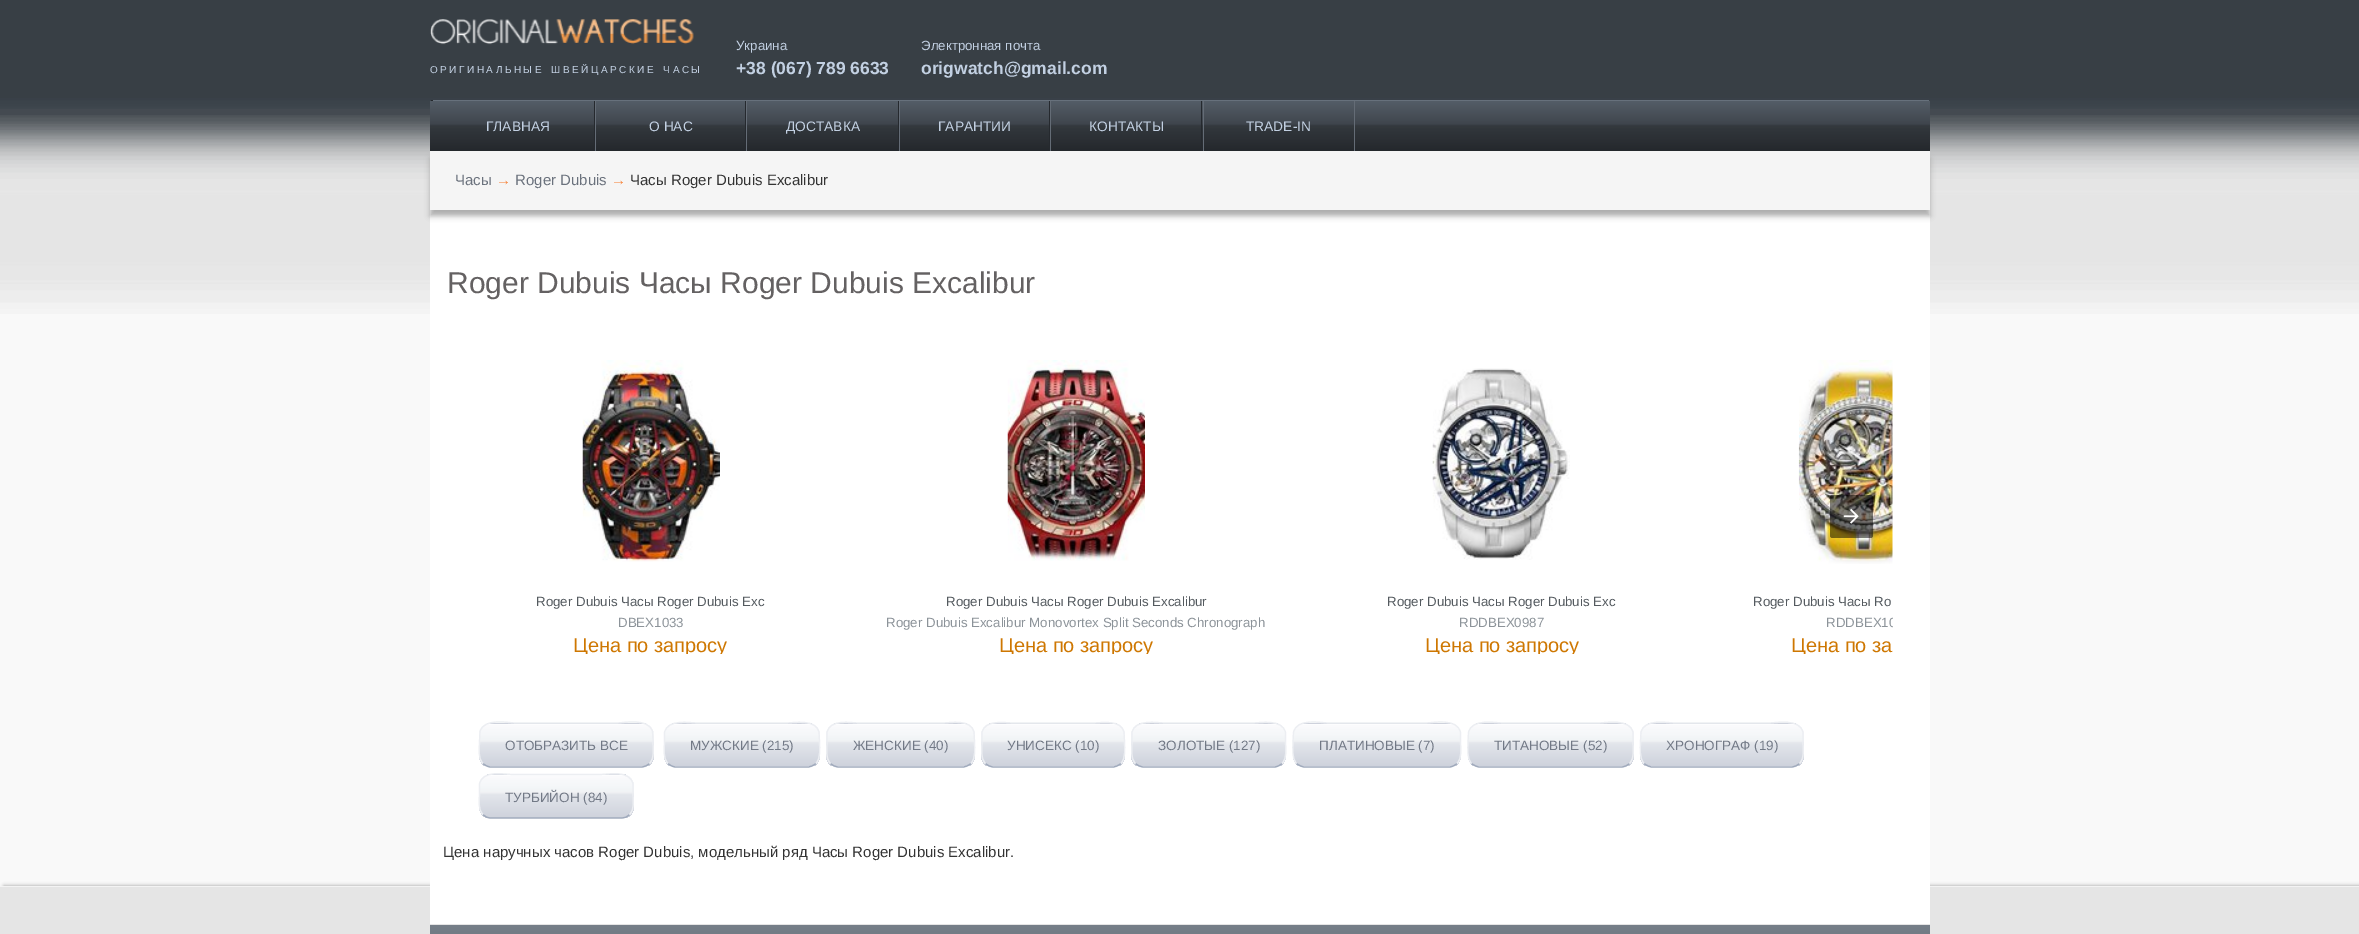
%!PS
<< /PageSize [2359 934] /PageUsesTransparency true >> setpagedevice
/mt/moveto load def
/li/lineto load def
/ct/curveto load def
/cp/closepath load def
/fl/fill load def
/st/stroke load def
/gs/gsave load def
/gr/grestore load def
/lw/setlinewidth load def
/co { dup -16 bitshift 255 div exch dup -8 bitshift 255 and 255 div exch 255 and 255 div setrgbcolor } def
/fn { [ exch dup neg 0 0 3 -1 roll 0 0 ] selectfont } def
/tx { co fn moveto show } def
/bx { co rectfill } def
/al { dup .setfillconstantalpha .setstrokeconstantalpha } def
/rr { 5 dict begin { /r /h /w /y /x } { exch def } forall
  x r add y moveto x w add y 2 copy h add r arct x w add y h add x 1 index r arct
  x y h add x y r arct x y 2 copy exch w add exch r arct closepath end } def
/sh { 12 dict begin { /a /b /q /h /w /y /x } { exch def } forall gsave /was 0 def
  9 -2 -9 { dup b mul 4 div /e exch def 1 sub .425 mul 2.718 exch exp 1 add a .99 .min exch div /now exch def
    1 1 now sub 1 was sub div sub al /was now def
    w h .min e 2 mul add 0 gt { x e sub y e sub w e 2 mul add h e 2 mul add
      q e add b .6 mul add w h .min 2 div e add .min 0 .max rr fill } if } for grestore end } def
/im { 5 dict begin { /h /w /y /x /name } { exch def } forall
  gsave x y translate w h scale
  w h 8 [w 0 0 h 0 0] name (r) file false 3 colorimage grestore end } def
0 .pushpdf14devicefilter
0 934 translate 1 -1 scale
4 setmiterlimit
0 0 2359 934 16#F9F9F9 bx
(media/1.raw) 0 98 2359 216 im
0 0 2359 98 16#383F45 bx
(media/2.raw) 430 19 264 26 im
gs
434 100 mt 1926 100 li 1928 100 1930 102 1930 104 ct 1930 151 li 430 151 li 430 104 li 430 102 432 100 434 100 ct cp clip newpath
gs 430 100 mt 433 100 li 433 101 li 430 101 li cp clip newpath
<< /ShadingType 2 /ColorSpace /DeviceRGB /Coords [1180 51 1180 101] /Extend [true true] /Function << /FunctionType 3 /Domain [0 1] /Functions [<< /FunctionType 2 /Domain [0 1] /C0 [.329 .365 .404] /C1 [.247 .271 .302] /N 1 >> << /FunctionType 2 /Domain [0 1] /C0 [.247 .271 .302] /C1 [.204 .224 .251] /N 1 >> << /FunctionType 2 /Domain [0 1] /C0 [.204 .224 .251] /C1 [.2 .22 .239] /N 1 >> << /FunctionType 2 /Domain [0 1] /C0 [.2 .22 .239] /C1 [.141 .157 .173] /N 1 >>] /Bounds [.46 .49 .51] /Encode [0 1 0 1 0 1 0 1] >> >> shfill gr
gr
430 210 1500 25 16#FFFFFF bx
16#AAAAAA co
430 158 1500 58 0 3 1 sh
gs
434 100 mt 1926 100 li 1928 100 1930 102 1930 104 ct 1930 151 li 430 151 li 430 104 li 430 102 432 100 434 100 ct cp clip newpath
gs 430 101 mt 1930 101 li 1930 151 li 430 151 li cp clip newpath
<< /ShadingType 2 /ColorSpace /DeviceRGB /Coords [1180 101 1180 151] /Extend [true true] /Function << /FunctionType 3 /Domain [0 1] /Functions [<< /FunctionType 2 /Domain [0 1] /C0 [.329 .365 .404] /C1 [.247 .271 .302] /N 1 >> << /FunctionType 2 /Domain [0 1] /C0 [.247 .271 .302] /C1 [.204 .224 .251] /N 1 >> << /FunctionType 2 /Domain [0 1] /C0 [.204 .224 .251] /C1 [.2 .22 .239] /N 1 >> << /FunctionType 2 /Domain [0 1] /C0 [.2 .22 .239] /C1 [.141 .157 .173] /N 1 >>] /Bounds [.46 .49 .51] /Encode [0 1 0 1 0 1 0 1] >> >> shfill gr
gr
433 100 1496 1 16#67717C bx
594 101 1 50 16#25292E bx
745 101 1 50 16#25292E bx
595 101 1 50 16#646C76 bx
898 101 1 50 16#25292E bx
746 101 1 50 16#646C76 bx
1049 101 1 50 16#25292E bx
899 101 1 50 16#646C76 bx
1201 101 1 50 16#25292E bx
1050 101 1 50 16#646C76 bx
1354 101 1 50 16#646C76 bx
1203 101 1 50 16#646C76 bx
430 151 1500 59 16#F5F5F5 bx
16#999999 co
4 886 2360 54 0 2 1 sh
0 887 2359 47 16#E5E5E5 bx
0 886 2359 1 16#F3F3F3 bx
430 235 1500 689 16#FFFFFF bx
(media/7.raw) 1798 360 95 204 im
0.5 al
16#000000 co
1830 495 43 43 2.5 rr fl
1 al
(media/3.raw) 1843 508 16 16 im
(media/4.raw) 582 360 138 202 im
(media/5.raw) 1007 360 138 201 im
(media/6.raw) 1432 368 138 192 im
gs
479 723 175 45 13 rr clip newpath
gs 479 723 mt 654 723 li 654 724 li 479 724 li cp clip newpath
<< /ShadingType 2 /ColorSpace /DeviceRGB /Coords [566 681 566 724] /Extend [true true] /Function << /FunctionType 3 /Domain [0 1] /Functions [<< /FunctionType 2 /Domain [0 1] /C0 [1 1 1] /C1 [.984 .984 .992] /N 1 >> << /FunctionType 2 /Domain [0 1] /C0 [.984 .984 .992] /C1 [.945 .957 .965] /N 1 >> << /FunctionType 2 /Domain [0 1] /C0 [.945 .957 .965] /C1 [.941 .945 .957] /N 1 >> << /FunctionType 2 /Domain [0 1] /C0 [.941 .945 .957] /C1 [.89 .902 .922] /N 1 >> << /FunctionType 2 /Domain [0 1] /C0 [.89 .902 .922] /C1 [.808 .824 .863] /N 1 >>] /Bounds [.03 .38 .41 .45] /Encode [0 1 0 1 0 1 0 1 0 1] >> >> shfill gr
gs 479 724 mt 654 724 li 654 766 li 479 766 li cp clip newpath
<< /ShadingType 2 /ColorSpace /DeviceRGB /Coords [566 724 566 766] /Extend [true true] /Function << /FunctionType 3 /Domain [0 1] /Functions [<< /FunctionType 2 /Domain [0 1] /C0 [1 1 1] /C1 [.984 .984 .992] /N 1 >> << /FunctionType 2 /Domain [0 1] /C0 [.984 .984 .992] /C1 [.945 .957 .965] /N 1 >> << /FunctionType 2 /Domain [0 1] /C0 [.945 .957 .965] /C1 [.941 .945 .957] /N 1 >> << /FunctionType 2 /Domain [0 1] /C0 [.941 .945 .957] /C1 [.89 .902 .922] /N 1 >> << /FunctionType 2 /Domain [0 1] /C0 [.89 .902 .922] /C1 [.808 .824 .863] /N 1 >>] /Bounds [.03 .38 .41 .45] /Encode [0 1 0 1 0 1 0 1 0 1] >> >> shfill gr
gs 479 766 mt 654 766 li 654 768 li 479 768 li cp clip newpath
<< /ShadingType 2 /ColorSpace /DeviceRGB /Coords [566 766 566 809] /Extend [true true] /Function << /FunctionType 3 /Domain [0 1] /Functions [<< /FunctionType 2 /Domain [0 1] /C0 [1 1 1] /C1 [.984 .984 .992] /N 1 >> << /FunctionType 2 /Domain [0 1] /C0 [.984 .984 .992] /C1 [.945 .957 .965] /N 1 >> << /FunctionType 2 /Domain [0 1] /C0 [.945 .957 .965] /C1 [.941 .945 .957] /N 1 >> << /FunctionType 2 /Domain [0 1] /C0 [.941 .945 .957] /C1 [.89 .902 .922] /N 1 >> << /FunctionType 2 /Domain [0 1] /C0 [.89 .902 .922] /C1 [.808 .824 .863] /N 1 >>] /Bounds [.03 .38 .41 .45] /Encode [0 1 0 1 0 1 0 1 0 1] >> >> shfill gr
gr
16#A0AABC co
1.2 lw
649.5 763.5 mt 647.5 765.5 644.5 767 641 767 ct 491 767 li 488 767 485 765.5 483 763.5 ct st
16#ECEEF2 co
483 763.5 mt 477.5 758 479.5 748.5 479.5 741.5 ct 480 731.5 li 484 717.5 508.5 723 516 723 ct 616 723 li 624 723 648.5 717.5 652.5 731.5 ct 653 741.5 li 653 748.5 655 758 649.5 763.5 ct st
gs
664 723 156 45 13 rr clip newpath
gs 664 723 mt 820 723 li 820 724 li 664 724 li cp clip newpath
<< /ShadingType 2 /ColorSpace /DeviceRGB /Coords [742 681 742 724] /Extend [true true] /Function << /FunctionType 3 /Domain [0 1] /Functions [<< /FunctionType 2 /Domain [0 1] /C0 [1 1 1] /C1 [.984 .984 .992] /N 1 >> << /FunctionType 2 /Domain [0 1] /C0 [.984 .984 .992] /C1 [.945 .957 .965] /N 1 >> << /FunctionType 2 /Domain [0 1] /C0 [.945 .957 .965] /C1 [.941 .945 .957] /N 1 >> << /FunctionType 2 /Domain [0 1] /C0 [.941 .945 .957] /C1 [.89 .902 .922] /N 1 >> << /FunctionType 2 /Domain [0 1] /C0 [.89 .902 .922] /C1 [.808 .824 .863] /N 1 >>] /Bounds [.03 .38 .41 .45] /Encode [0 1 0 1 0 1 0 1 0 1] >> >> shfill gr
gs 664 724 mt 820 724 li 820 766 li 664 766 li cp clip newpath
<< /ShadingType 2 /ColorSpace /DeviceRGB /Coords [742 724 742 766] /Extend [true true] /Function << /FunctionType 3 /Domain [0 1] /Functions [<< /FunctionType 2 /Domain [0 1] /C0 [1 1 1] /C1 [.984 .984 .992] /N 1 >> << /FunctionType 2 /Domain [0 1] /C0 [.984 .984 .992] /C1 [.945 .957 .965] /N 1 >> << /FunctionType 2 /Domain [0 1] /C0 [.945 .957 .965] /C1 [.941 .945 .957] /N 1 >> << /FunctionType 2 /Domain [0 1] /C0 [.941 .945 .957] /C1 [.89 .902 .922] /N 1 >> << /FunctionType 2 /Domain [0 1] /C0 [.89 .902 .922] /C1 [.808 .824 .863] /N 1 >>] /Bounds [.03 .38 .41 .45] /Encode [0 1 0 1 0 1 0 1 0 1] >> >> shfill gr
gs 664 766 mt 820 766 li 820 768 li 664 768 li cp clip newpath
<< /ShadingType 2 /ColorSpace /DeviceRGB /Coords [742 766 742 809] /Extend [true true] /Function << /FunctionType 3 /Domain [0 1] /Functions [<< /FunctionType 2 /Domain [0 1] /C0 [1 1 1] /C1 [.984 .984 .992] /N 1 >> << /FunctionType 2 /Domain [0 1] /C0 [.984 .984 .992] /C1 [.945 .957 .965] /N 1 >> << /FunctionType 2 /Domain [0 1] /C0 [.945 .957 .965] /C1 [.941 .945 .957] /N 1 >> << /FunctionType 2 /Domain [0 1] /C0 [.941 .945 .957] /C1 [.89 .902 .922] /N 1 >> << /FunctionType 2 /Domain [0 1] /C0 [.89 .902 .922] /C1 [.808 .824 .863] /N 1 >>] /Bounds [.03 .38 .41 .45] /Encode [0 1 0 1 0 1 0 1 0 1] >> >> shfill gr
gr
16#A0AABC co
816 763.5 mt 813.5 765.5 810.5 767 807.5 767 ct 676 767 li 673 767 670 765.5 668 763.5 ct st
16#ECEEF2 co
668 763.5 mt 662.5 758 664.5 748.5 664.5 741.5 ct 664.5 732.5 li 667.5 718.5 689.5 723 698 723 ct 785.5 723 li 794 723 816.5 718.5 819 732.5 ct 819.5 741.5 li 819.5 748.5 821 758 816 763.5 ct st
gs
826 723 149 45 13 rr clip newpath
gs 826 723 mt 975 723 li 975 724 li 826 724 li cp clip newpath
<< /ShadingType 2 /ColorSpace /DeviceRGB /Coords [901 681 901 724] /Extend [true true] /Function << /FunctionType 3 /Domain [0 1] /Functions [<< /FunctionType 2 /Domain [0 1] /C0 [1 1 1] /C1 [.984 .984 .992] /N 1 >> << /FunctionType 2 /Domain [0 1] /C0 [.984 .984 .992] /C1 [.945 .957 .965] /N 1 >> << /FunctionType 2 /Domain [0 1] /C0 [.945 .957 .965] /C1 [.941 .945 .957] /N 1 >> << /FunctionType 2 /Domain [0 1] /C0 [.941 .945 .957] /C1 [.89 .902 .922] /N 1 >> << /FunctionType 2 /Domain [0 1] /C0 [.89 .902 .922] /C1 [.808 .824 .863] /N 1 >>] /Bounds [.03 .38 .41 .45] /Encode [0 1 0 1 0 1 0 1 0 1] >> >> shfill gr
gs 826 724 mt 975 724 li 975 766 li 826 766 li cp clip newpath
<< /ShadingType 2 /ColorSpace /DeviceRGB /Coords [901 724 901 766] /Extend [true true] /Function << /FunctionType 3 /Domain [0 1] /Functions [<< /FunctionType 2 /Domain [0 1] /C0 [1 1 1] /C1 [.984 .984 .992] /N 1 >> << /FunctionType 2 /Domain [0 1] /C0 [.984 .984 .992] /C1 [.945 .957 .965] /N 1 >> << /FunctionType 2 /Domain [0 1] /C0 [.945 .957 .965] /C1 [.941 .945 .957] /N 1 >> << /FunctionType 2 /Domain [0 1] /C0 [.941 .945 .957] /C1 [.89 .902 .922] /N 1 >> << /FunctionType 2 /Domain [0 1] /C0 [.89 .902 .922] /C1 [.808 .824 .863] /N 1 >>] /Bounds [.03 .38 .41 .45] /Encode [0 1 0 1 0 1 0 1 0 1] >> >> shfill gr
gs 826 766 mt 975 766 li 975 768 li 826 768 li cp clip newpath
<< /ShadingType 2 /ColorSpace /DeviceRGB /Coords [901 766 901 809] /Extend [true true] /Function << /FunctionType 3 /Domain [0 1] /Functions [<< /FunctionType 2 /Domain [0 1] /C0 [1 1 1] /C1 [.984 .984 .992] /N 1 >> << /FunctionType 2 /Domain [0 1] /C0 [.984 .984 .992] /C1 [.945 .957 .965] /N 1 >> << /FunctionType 2 /Domain [0 1] /C0 [.945 .957 .965] /C1 [.941 .945 .957] /N 1 >> << /FunctionType 2 /Domain [0 1] /C0 [.941 .945 .957] /C1 [.89 .902 .922] /N 1 >> << /FunctionType 2 /Domain [0 1] /C0 [.89 .902 .922] /C1 [.808 .824 .863] /N 1 >>] /Bounds [.03 .38 .41 .45] /Encode [0 1 0 1 0 1 0 1 0 1] >> >> shfill gr
gr
16#A0AABC co
971 763.5 mt 968.5 765.5 965.5 767 962.5 767 ct 839 767 li 835.5 767 832.5 765.5 830.5 763.5 ct st
16#ECEEF2 co
830.5 763.5 mt 825 758 827 748.5 827 741.5 ct 827 732.5 li 830 718.5 850.5 723 859.5 723 ct 942 723 li 950.5 723 971.5 718.5 974 732.5 ct 974.5 741.5 li 974.5 748.5 976 758 971 763.5 ct st
gs
981 723 144 45 13 rr clip newpath
gs 981 723 mt 1125 723 li 1125 724 li 981 724 li cp clip newpath
<< /ShadingType 2 /ColorSpace /DeviceRGB /Coords [1053 681 1053 724] /Extend [true true] /Function << /FunctionType 3 /Domain [0 1] /Functions [<< /FunctionType 2 /Domain [0 1] /C0 [1 1 1] /C1 [.984 .984 .992] /N 1 >> << /FunctionType 2 /Domain [0 1] /C0 [.984 .984 .992] /C1 [.945 .957 .965] /N 1 >> << /FunctionType 2 /Domain [0 1] /C0 [.945 .957 .965] /C1 [.941 .945 .957] /N 1 >> << /FunctionType 2 /Domain [0 1] /C0 [.941 .945 .957] /C1 [.89 .902 .922] /N 1 >> << /FunctionType 2 /Domain [0 1] /C0 [.89 .902 .922] /C1 [.808 .824 .863] /N 1 >>] /Bounds [.03 .38 .41 .45] /Encode [0 1 0 1 0 1 0 1 0 1] >> >> shfill gr
gs 981 724 mt 1125 724 li 1125 766 li 981 766 li cp clip newpath
<< /ShadingType 2 /ColorSpace /DeviceRGB /Coords [1053 724 1053 766] /Extend [true true] /Function << /FunctionType 3 /Domain [0 1] /Functions [<< /FunctionType 2 /Domain [0 1] /C0 [1 1 1] /C1 [.984 .984 .992] /N 1 >> << /FunctionType 2 /Domain [0 1] /C0 [.984 .984 .992] /C1 [.945 .957 .965] /N 1 >> << /FunctionType 2 /Domain [0 1] /C0 [.945 .957 .965] /C1 [.941 .945 .957] /N 1 >> << /FunctionType 2 /Domain [0 1] /C0 [.941 .945 .957] /C1 [.89 .902 .922] /N 1 >> << /FunctionType 2 /Domain [0 1] /C0 [.89 .902 .922] /C1 [.808 .824 .863] /N 1 >>] /Bounds [.03 .38 .41 .45] /Encode [0 1 0 1 0 1 0 1 0 1] >> >> shfill gr
gs 981 766 mt 1125 766 li 1125 768 li 981 768 li cp clip newpath
<< /ShadingType 2 /ColorSpace /DeviceRGB /Coords [1053 766 1053 809] /Extend [true true] /Function << /FunctionType 3 /Domain [0 1] /Functions [<< /FunctionType 2 /Domain [0 1] /C0 [1 1 1] /C1 [.984 .984 .992] /N 1 >> << /FunctionType 2 /Domain [0 1] /C0 [.984 .984 .992] /C1 [.945 .957 .965] /N 1 >> << /FunctionType 2 /Domain [0 1] /C0 [.945 .957 .965] /C1 [.941 .945 .957] /N 1 >> << /FunctionType 2 /Domain [0 1] /C0 [.941 .945 .957] /C1 [.89 .902 .922] /N 1 >> << /FunctionType 2 /Domain [0 1] /C0 [.89 .902 .922] /C1 [.808 .824 .863] /N 1 >>] /Bounds [.03 .38 .41 .45] /Encode [0 1 0 1 0 1 0 1 0 1] >> >> shfill gr
gr
16#A0AABC co
1121 763.5 mt 1118.5 765.5 1115.5 767 1112.5 767 ct 994 767 li 990.5 767 987.5 765.5 985.5 763.5 ct st
16#ECEEF2 co
985.5 763.5 mt 980 758 982 748.5 982 741.5 ct 982 732.5 li 985 719 1005 723 1013.5 723 ct 1092.5 723 li 1101.5 723 1121.5 719 1124 732.5 ct 1124.5 741.5 li 1124.5 748.5 1126 758 1121 763.5 ct st
gs
1131 723 155 45 13 rr clip newpath
gs 1131 723 mt 1286 723 li 1286 724 li 1131 724 li cp clip newpath
<< /ShadingType 2 /ColorSpace /DeviceRGB /Coords [1209 681 1209 724] /Extend [true true] /Function << /FunctionType 3 /Domain [0 1] /Functions [<< /FunctionType 2 /Domain [0 1] /C0 [1 1 1] /C1 [.984 .984 .992] /N 1 >> << /FunctionType 2 /Domain [0 1] /C0 [.984 .984 .992] /C1 [.945 .957 .965] /N 1 >> << /FunctionType 2 /Domain [0 1] /C0 [.945 .957 .965] /C1 [.941 .945 .957] /N 1 >> << /FunctionType 2 /Domain [0 1] /C0 [.941 .945 .957] /C1 [.89 .902 .922] /N 1 >> << /FunctionType 2 /Domain [0 1] /C0 [.89 .902 .922] /C1 [.808 .824 .863] /N 1 >>] /Bounds [.03 .38 .41 .45] /Encode [0 1 0 1 0 1 0 1 0 1] >> >> shfill gr
gs 1131 724 mt 1286 724 li 1286 766 li 1131 766 li cp clip newpath
<< /ShadingType 2 /ColorSpace /DeviceRGB /Coords [1209 724 1209 766] /Extend [true true] /Function << /FunctionType 3 /Domain [0 1] /Functions [<< /FunctionType 2 /Domain [0 1] /C0 [1 1 1] /C1 [.984 .984 .992] /N 1 >> << /FunctionType 2 /Domain [0 1] /C0 [.984 .984 .992] /C1 [.945 .957 .965] /N 1 >> << /FunctionType 2 /Domain [0 1] /C0 [.945 .957 .965] /C1 [.941 .945 .957] /N 1 >> << /FunctionType 2 /Domain [0 1] /C0 [.941 .945 .957] /C1 [.89 .902 .922] /N 1 >> << /FunctionType 2 /Domain [0 1] /C0 [.89 .902 .922] /C1 [.808 .824 .863] /N 1 >>] /Bounds [.03 .38 .41 .45] /Encode [0 1 0 1 0 1 0 1 0 1] >> >> shfill gr
gs 1131 766 mt 1286 766 li 1286 768 li 1131 768 li cp clip newpath
<< /ShadingType 2 /ColorSpace /DeviceRGB /Coords [1209 766 1209 809] /Extend [true true] /Function << /FunctionType 3 /Domain [0 1] /Functions [<< /FunctionType 2 /Domain [0 1] /C0 [1 1 1] /C1 [.984 .984 .992] /N 1 >> << /FunctionType 2 /Domain [0 1] /C0 [.984 .984 .992] /C1 [.945 .957 .965] /N 1 >> << /FunctionType 2 /Domain [0 1] /C0 [.945 .957 .965] /C1 [.941 .945 .957] /N 1 >> << /FunctionType 2 /Domain [0 1] /C0 [.941 .945 .957] /C1 [.89 .902 .922] /N 1 >> << /FunctionType 2 /Domain [0 1] /C0 [.89 .902 .922] /C1 [.808 .824 .863] /N 1 >>] /Bounds [.03 .38 .41 .45] /Encode [0 1 0 1 0 1 0 1 0 1] >> >> shfill gr
gr
16#A0AABC co
1282 763.5 mt 1280 765.5 1277 767 1274 767 ct 1144 767 li 1140.5 767 1137.5 765.5 1135.5 763.5 ct st
16#ECEEF2 co
1135.5 763.5 mt 1130 758 1132 748.5 1132 741.5 ct 1132 732.5 li 1135 718.5 1157 723 1165.5 723 ct 1252 723 li 1260.5 723 1282.5 718.5 1285.5 732.5 ct 1285.5 741.5 li 1285.5 748.5 1287.5 758 1282 763.5 ct st
gs
1293 723 168 45 13 rr clip newpath
gs 1293 723 mt 1461 723 li 1461 724 li 1293 724 li cp clip newpath
<< /ShadingType 2 /ColorSpace /DeviceRGB /Coords [1377 681 1377 724] /Extend [true true] /Function << /FunctionType 3 /Domain [0 1] /Functions [<< /FunctionType 2 /Domain [0 1] /C0 [1 1 1] /C1 [.984 .984 .992] /N 1 >> << /FunctionType 2 /Domain [0 1] /C0 [.984 .984 .992] /C1 [.945 .957 .965] /N 1 >> << /FunctionType 2 /Domain [0 1] /C0 [.945 .957 .965] /C1 [.941 .945 .957] /N 1 >> << /FunctionType 2 /Domain [0 1] /C0 [.941 .945 .957] /C1 [.89 .902 .922] /N 1 >> << /FunctionType 2 /Domain [0 1] /C0 [.89 .902 .922] /C1 [.808 .824 .863] /N 1 >>] /Bounds [.03 .38 .41 .45] /Encode [0 1 0 1 0 1 0 1 0 1] >> >> shfill gr
gs 1293 724 mt 1461 724 li 1461 766 li 1293 766 li cp clip newpath
<< /ShadingType 2 /ColorSpace /DeviceRGB /Coords [1377 724 1377 766] /Extend [true true] /Function << /FunctionType 3 /Domain [0 1] /Functions [<< /FunctionType 2 /Domain [0 1] /C0 [1 1 1] /C1 [.984 .984 .992] /N 1 >> << /FunctionType 2 /Domain [0 1] /C0 [.984 .984 .992] /C1 [.945 .957 .965] /N 1 >> << /FunctionType 2 /Domain [0 1] /C0 [.945 .957 .965] /C1 [.941 .945 .957] /N 1 >> << /FunctionType 2 /Domain [0 1] /C0 [.941 .945 .957] /C1 [.89 .902 .922] /N 1 >> << /FunctionType 2 /Domain [0 1] /C0 [.89 .902 .922] /C1 [.808 .824 .863] /N 1 >>] /Bounds [.03 .38 .41 .45] /Encode [0 1 0 1 0 1 0 1 0 1] >> >> shfill gr
gs 1293 766 mt 1461 766 li 1461 768 li 1293 768 li cp clip newpath
<< /ShadingType 2 /ColorSpace /DeviceRGB /Coords [1377 766 1377 809] /Extend [true true] /Function << /FunctionType 3 /Domain [0 1] /Functions [<< /FunctionType 2 /Domain [0 1] /C0 [1 1 1] /C1 [.984 .984 .992] /N 1 >> << /FunctionType 2 /Domain [0 1] /C0 [.984 .984 .992] /C1 [.945 .957 .965] /N 1 >> << /FunctionType 2 /Domain [0 1] /C0 [.945 .957 .965] /C1 [.941 .945 .957] /N 1 >> << /FunctionType 2 /Domain [0 1] /C0 [.941 .945 .957] /C1 [.89 .902 .922] /N 1 >> << /FunctionType 2 /Domain [0 1] /C0 [.89 .902 .922] /C1 [.808 .824 .863] /N 1 >>] /Bounds [.03 .38 .41 .45] /Encode [0 1 0 1 0 1 0 1 0 1] >> >> shfill gr
gr
16#A0AABC co
1457 763.5 mt 1455 765.5 1452 767 1449 767 ct 1305 767 li 1302 767 1299 765.5 1296.5 763.5 ct st
16#ECEEF2 co
1296.5 763.5 mt 1291.5 758 1293 748.5 1293 741.5 ct 1293.5 732.5 li 1296.5 717.5 1321 723 1329 723 ct 1425 723 li 1433 723 1457.5 717.5 1460.5 732.5 ct 1460.5 741.5 li 1460.5 748.5 1462.5 758 1457 763.5 ct st
gs
1468 723 166 45 13 rr clip newpath
gs 1468 723 mt 1634 723 li 1634 724 li 1468 724 li cp clip newpath
<< /ShadingType 2 /ColorSpace /DeviceRGB /Coords [1551 681 1551 724] /Extend [true true] /Function << /FunctionType 3 /Domain [0 1] /Functions [<< /FunctionType 2 /Domain [0 1] /C0 [1 1 1] /C1 [.984 .984 .992] /N 1 >> << /FunctionType 2 /Domain [0 1] /C0 [.984 .984 .992] /C1 [.945 .957 .965] /N 1 >> << /FunctionType 2 /Domain [0 1] /C0 [.945 .957 .965] /C1 [.941 .945 .957] /N 1 >> << /FunctionType 2 /Domain [0 1] /C0 [.941 .945 .957] /C1 [.89 .902 .922] /N 1 >> << /FunctionType 2 /Domain [0 1] /C0 [.89 .902 .922] /C1 [.808 .824 .863] /N 1 >>] /Bounds [.03 .38 .41 .45] /Encode [0 1 0 1 0 1 0 1 0 1] >> >> shfill gr
gs 1468 724 mt 1634 724 li 1634 766 li 1468 766 li cp clip newpath
<< /ShadingType 2 /ColorSpace /DeviceRGB /Coords [1551 724 1551 766] /Extend [true true] /Function << /FunctionType 3 /Domain [0 1] /Functions [<< /FunctionType 2 /Domain [0 1] /C0 [1 1 1] /C1 [.984 .984 .992] /N 1 >> << /FunctionType 2 /Domain [0 1] /C0 [.984 .984 .992] /C1 [.945 .957 .965] /N 1 >> << /FunctionType 2 /Domain [0 1] /C0 [.945 .957 .965] /C1 [.941 .945 .957] /N 1 >> << /FunctionType 2 /Domain [0 1] /C0 [.941 .945 .957] /C1 [.89 .902 .922] /N 1 >> << /FunctionType 2 /Domain [0 1] /C0 [.89 .902 .922] /C1 [.808 .824 .863] /N 1 >>] /Bounds [.03 .38 .41 .45] /Encode [0 1 0 1 0 1 0 1 0 1] >> >> shfill gr
gs 1468 766 mt 1634 766 li 1634 768 li 1468 768 li cp clip newpath
<< /ShadingType 2 /ColorSpace /DeviceRGB /Coords [1551 766 1551 809] /Extend [true true] /Function << /FunctionType 3 /Domain [0 1] /Functions [<< /FunctionType 2 /Domain [0 1] /C0 [1 1 1] /C1 [.984 .984 .992] /N 1 >> << /FunctionType 2 /Domain [0 1] /C0 [.984 .984 .992] /C1 [.945 .957 .965] /N 1 >> << /FunctionType 2 /Domain [0 1] /C0 [.945 .957 .965] /C1 [.941 .945 .957] /N 1 >> << /FunctionType 2 /Domain [0 1] /C0 [.941 .945 .957] /C1 [.89 .902 .922] /N 1 >> << /FunctionType 2 /Domain [0 1] /C0 [.89 .902 .922] /C1 [.808 .824 .863] /N 1 >>] /Bounds [.03 .38 .41 .45] /Encode [0 1 0 1 0 1 0 1 0 1] >> >> shfill gr
gr
16#A0AABC co
1629.5 763.5 mt 1627.5 765.5 1624.5 767 1621 767 ct 1480 767 li 1477 767 1474 765.5 1471.5 763.5 ct st
16#ECEEF2 co
1471.5 763.5 mt 1466.5 758 1468 748.5 1468 741.5 ct 1468.5 732.5 li 1471.5 718 1495.5 723 1503.5 723 ct 1597.5 723 li 1606 723 1630 718 1633 732.5 ct 1633 741.5 li 1633 748.5 1635 758 1629.5 763.5 ct st
gs
1640 723 164 45 13 rr clip newpath
gs 1640 723 mt 1804 723 li 1804 724 li 1640 724 li cp clip newpath
<< /ShadingType 2 /ColorSpace /DeviceRGB /Coords [1722 681 1722 724] /Extend [true true] /Function << /FunctionType 3 /Domain [0 1] /Functions [<< /FunctionType 2 /Domain [0 1] /C0 [1 1 1] /C1 [.984 .984 .992] /N 1 >> << /FunctionType 2 /Domain [0 1] /C0 [.984 .984 .992] /C1 [.945 .957 .965] /N 1 >> << /FunctionType 2 /Domain [0 1] /C0 [.945 .957 .965] /C1 [.941 .945 .957] /N 1 >> << /FunctionType 2 /Domain [0 1] /C0 [.941 .945 .957] /C1 [.89 .902 .922] /N 1 >> << /FunctionType 2 /Domain [0 1] /C0 [.89 .902 .922] /C1 [.808 .824 .863] /N 1 >>] /Bounds [.03 .38 .41 .45] /Encode [0 1 0 1 0 1 0 1 0 1] >> >> shfill gr
gs 1640 724 mt 1804 724 li 1804 766 li 1640 766 li cp clip newpath
<< /ShadingType 2 /ColorSpace /DeviceRGB /Coords [1722 724 1722 766] /Extend [true true] /Function << /FunctionType 3 /Domain [0 1] /Functions [<< /FunctionType 2 /Domain [0 1] /C0 [1 1 1] /C1 [.984 .984 .992] /N 1 >> << /FunctionType 2 /Domain [0 1] /C0 [.984 .984 .992] /C1 [.945 .957 .965] /N 1 >> << /FunctionType 2 /Domain [0 1] /C0 [.945 .957 .965] /C1 [.941 .945 .957] /N 1 >> << /FunctionType 2 /Domain [0 1] /C0 [.941 .945 .957] /C1 [.89 .902 .922] /N 1 >> << /FunctionType 2 /Domain [0 1] /C0 [.89 .902 .922] /C1 [.808 .824 .863] /N 1 >>] /Bounds [.03 .38 .41 .45] /Encode [0 1 0 1 0 1 0 1 0 1] >> >> shfill gr
gs 1640 766 mt 1804 766 li 1804 768 li 1640 768 li cp clip newpath
<< /ShadingType 2 /ColorSpace /DeviceRGB /Coords [1722 766 1722 809] /Extend [true true] /Function << /FunctionType 3 /Domain [0 1] /Functions [<< /FunctionType 2 /Domain [0 1] /C0 [1 1 1] /C1 [.984 .984 .992] /N 1 >> << /FunctionType 2 /Domain [0 1] /C0 [.984 .984 .992] /C1 [.945 .957 .965] /N 1 >> << /FunctionType 2 /Domain [0 1] /C0 [.945 .957 .965] /C1 [.941 .945 .957] /N 1 >> << /FunctionType 2 /Domain [0 1] /C0 [.941 .945 .957] /C1 [.89 .902 .922] /N 1 >> << /FunctionType 2 /Domain [0 1] /C0 [.89 .902 .922] /C1 [.808 .824 .863] /N 1 >>] /Bounds [.03 .38 .41 .45] /Encode [0 1 0 1 0 1 0 1 0 1] >> >> shfill gr
gr
16#A0AABC co
1799.5 763.5 mt 1797.5 765.5 1794.5 767 1791 767 ct 1652.5 767 li 1649.5 767 1646.5 765.5 1644 763.5 ct st
16#ECEEF2 co
1644 763.5 mt 1639 758 1640.5 748.5 1640.5 741.5 ct 1641 732.5 li 1644 718 1667.5 723 1675.5 723 ct 1768 723 li 1776.5 723 1800 718 1803 732.5 ct 1803 741.5 li 1803 748.5 1805 758 1799.5 763.5 ct st
gs
479 774 155 45 13 rr clip newpath
gs 479 774 mt 634 774 li 634 775 li 479 775 li cp clip newpath
<< /ShadingType 2 /ColorSpace /DeviceRGB /Coords [556 733 556 775] /Extend [true true] /Function << /FunctionType 3 /Domain [0 1] /Functions [<< /FunctionType 2 /Domain [0 1] /C0 [1 1 1] /C1 [.984 .984 .992] /N 1 >> << /FunctionType 2 /Domain [0 1] /C0 [.984 .984 .992] /C1 [.945 .957 .965] /N 1 >> << /FunctionType 2 /Domain [0 1] /C0 [.945 .957 .965] /C1 [.941 .945 .957] /N 1 >> << /FunctionType 2 /Domain [0 1] /C0 [.941 .945 .957] /C1 [.89 .902 .922] /N 1 >> << /FunctionType 2 /Domain [0 1] /C0 [.89 .902 .922] /C1 [.808 .824 .863] /N 1 >>] /Bounds [.03 .38 .41 .45] /Encode [0 1 0 1 0 1 0 1 0 1] >> >> shfill gr
gs 479 775 mt 634 775 li 634 818 li 479 818 li cp clip newpath
<< /ShadingType 2 /ColorSpace /DeviceRGB /Coords [556 775 556 818] /Extend [true true] /Function << /FunctionType 3 /Domain [0 1] /Functions [<< /FunctionType 2 /Domain [0 1] /C0 [1 1 1] /C1 [.984 .984 .992] /N 1 >> << /FunctionType 2 /Domain [0 1] /C0 [.984 .984 .992] /C1 [.945 .957 .965] /N 1 >> << /FunctionType 2 /Domain [0 1] /C0 [.945 .957 .965] /C1 [.941 .945 .957] /N 1 >> << /FunctionType 2 /Domain [0 1] /C0 [.941 .945 .957] /C1 [.89 .902 .922] /N 1 >> << /FunctionType 2 /Domain [0 1] /C0 [.89 .902 .922] /C1 [.808 .824 .863] /N 1 >>] /Bounds [.03 .38 .41 .45] /Encode [0 1 0 1 0 1 0 1 0 1] >> >> shfill gr
gr
16#A0AABC co
629.5 814.5 mt 627.5 817 624.5 818 621 818 ct 491 818 li 488 818 485 817 483 814.5 ct st
16#ECEEF2 co
483 814.5 mt 477.5 809.5 479.5 799.5 479.5 793 ct 479.5 784 li 482.5 769.5 504.5 774.5 513 774.5 ct 599.5 774.5 li 608 774.5 630 769.5 633 784 ct 633 793 li 633 799.5 635 809.5 629.5 814.5 ct st
gs 430 925 mt 1930 925 li 1930 934 li 430 934 li cp clip newpath
<< /ShadingType 2 /ColorSpace /DeviceRGB /Coords [1180 925 1180 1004] /Extend [true true] /Function << /FunctionType 2 /Domain [0 1] /C0 [.463 .498 .537] /C1 [.357 .384 .412] /N 1 >> >> shfill gr
/LiberationSans-Regular 10 fn
16#C2D0E2 co
430 73 mt 2 0 32 2.5 0 (ОРИГИНАЛЬНЫЕ ШВЕЙЦАРСКИЕ ЧАСЫ) awidthshow
(Украина) 736 50 /LiberationSans-Regular 13.3 16#C2D0E2 tx
(+38 \(067\) 789 6633) 736 74 /LiberationSans-Bold 17.5 16#C2D0E2 tx
(Электронная почта) 921 50 /LiberationSans-Regular 13.3 16#C2D0E2 tx
(origwatch@gmail.com) 921 74 /LiberationSans-Bold 17.5 16#C2D0E2 tx
(ГЛАВНАЯ) 486 131 /LiberationSans-Regular 13.75 16#C2D0E2 tx
(О НАС) 649 131 /LiberationSans-Regular 13.75 16#C2D0E2 tx
(ДОСТАВКА) 786 131 /LiberationSans-Regular 13.75 16#C2D0E2 tx
(ГАРАНТИИ) 938 131 /LiberationSans-Regular 13.75 16#C2D0E2 tx
(КОНТАКТЫ) 1089 131 /LiberationSans-Regular 13.75 16#C2D0E2 tx
(TRADE-IN) 1246 131 /LiberationSans-Regular 13.75 16#C2D0E2 tx
(Часы) 455 185 /LiberationSans-Regular 15 16#6B727D tx
(→) 496 185 /LiberationSans-Regular 15 16#F78136 tx
(Roger Dubuis) 515 185 /LiberationSans-Regular 15 16#6B727D tx
(→) 611 185 /LiberationSans-Regular 15 16#F78136 tx
(Часы Roger Dubuis Excalibur) 630 185 /LiberationSans-Regular 15 16#333333 tx
(Roger Dubuis Часы Roger Dubuis Excalibur) 447 293 /LiberationSans-Regular 30 16#646162 tx
(Roger Dubuis Часы Roger Dubuis Exc) 536 606 /LiberationSans-Regular 13.3 16#545A5F tx
(DBEX1033) 618 627 /LiberationSans-Regular 13.3 16#8C9399 tx
gs
520 360 261 294 rectclip
(Цена по запросу) 573 652 /LiberationSans-Regular 20 16#CE7701 tx
gr
(Roger Dubuis Часы Roger Dubuis Excalibur) 946 606 /LiberationSans-Regular 13.3 16#545A5F tx
(Roger Dubuis Excalibur Monovortex Split Seconds Chronograph) 886 627 /LiberationSans-Regular 13.3 16#8C9399 tx
gs
886 360 380 294 rectclip
(Цена по запросу) 999 652 /LiberationSans-Regular 20 16#CE7701 tx
gr
(Roger Dubuis Часы Roger Dubuis Exc) 1387 606 /LiberationSans-Regular 13.3 16#545A5F tx
(RDDBEX0987) 1459 627 /LiberationSans-Regular 13.3 16#8C9399 tx
gs
1371 360 262 294 rectclip
(Цена по запросу) 1425 652 /LiberationSans-Regular 20 16#CE7701 tx
gr
(Roger Dubuis Часы Ro) 1753 606 /LiberationSans-Regular 13.3 16#545A5F tx
gs
1738 611 155 27 rectclip
(RDDBEX10) 1826 627 /LiberationSans-Regular 13.3 16#8C9399 tx
gr
gs
1738 360 155 294 rectclip
(Цена по за) 1791 652 /LiberationSans-Regular 20 16#CE7701 tx
gr
(ОТОБРАЗИТЬ ВСЕ) 505 750 /LiberationSans-Regular 13.5 16#727986 tx
(МУЖСКИЕ \(215\)) 690 750 /LiberationSans-Regular 13.5 16#727986 tx
(ЖЕНСКИЕ \(40\)) 853 750 /LiberationSans-Regular 13.5 16#727986 tx
(УНИСЕКС \(10\)) 1007 750 /LiberationSans-Regular 13.5 16#727986 tx
(ЗОЛОТЫЕ \(127\)) 1158 750 /LiberationSans-Regular 13.5 16#727986 tx
(ПЛАТИНОВЫЕ \(7\)) 1319 750 /LiberationSans-Regular 13.5 16#727986 tx
(ТИТАНОВЫЕ \(52\)) 1494 750 /LiberationSans-Regular 13.5 16#727986 tx
(ХРОНОГРАФ \(19\)) 1666 750 /LiberationSans-Regular 13.5 16#727986 tx
(ТУРБИЙОН \(84\)) 505 802 /LiberationSans-Regular 13.5 16#727986 tx
(Цена наручных часов Roger Dubuis, модельный ряд Часы Roger Dubuis Excalibur.) 443 857 /LiberationSans-Regular 15 16#333333 tx
.poppdf14devicefilter showpage
